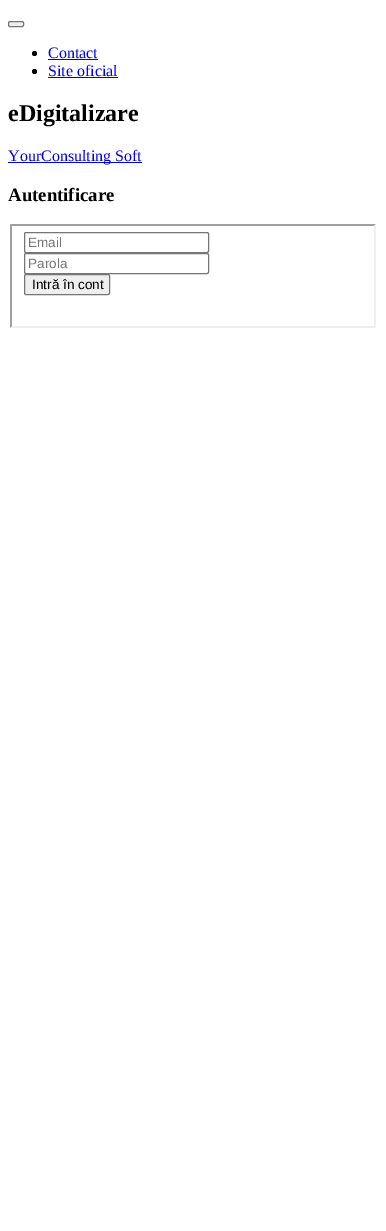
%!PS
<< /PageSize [386 1231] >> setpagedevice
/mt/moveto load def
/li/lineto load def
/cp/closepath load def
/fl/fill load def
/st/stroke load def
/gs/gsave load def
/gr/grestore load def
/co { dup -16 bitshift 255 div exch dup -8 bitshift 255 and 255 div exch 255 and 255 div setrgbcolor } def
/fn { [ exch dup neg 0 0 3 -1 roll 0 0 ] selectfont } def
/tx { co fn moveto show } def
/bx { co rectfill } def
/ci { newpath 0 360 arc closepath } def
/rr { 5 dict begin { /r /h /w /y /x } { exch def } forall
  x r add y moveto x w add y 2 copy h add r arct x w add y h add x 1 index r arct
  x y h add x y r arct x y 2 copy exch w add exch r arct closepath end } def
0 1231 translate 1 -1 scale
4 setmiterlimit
0 0 386 1231 16#FFFFFF bx
16#EFEFEF co
8.5 21.5 15 5 1.5 rr gs fl gr
16#767676 co
st
16#000000 co
34.5 53.5 2.5 ci fl
48 59 50 1 16#0000EE bx
16#000000 co
34.5 71.5 2.5 ci fl
48 77 70 1 16#0000EE bx
8 162 134 1 16#0000EE bx
16#9F9F9F co
10 224 mt 376 224 li 374 226 li 12 226 li cp fl
16#EFEFEF co
376 224 mt 376 328 li 374 326 li 374 226 li cp fl
376 328 mt 10 328 li 12 326 li 374 326 li cp fl
16#9F9F9F co
10 328 mt 10 224 li 12 226 li 12 326 li cp fl
16#767676 co
24.5 232.5 184 20 1.5 rr st
24.5 253.5 184 20 1.5 rr st
16#EFEFEF co
24.5 274.5 85 20 1.5 rr gs fl gr
16#767676 co
st
(Contact) 48 58 /LiberationSerif-Regular 16 16#0000EE tx
(Site oficial) 48 76 /LiberationSerif-Regular 16 16#0000EE tx
(eDigitalizare) 8 121 /LiberationSerif-Bold 24 16#000000 tx
(YourConsulting Soft) 8 161 /LiberationSerif-Regular 16 16#0000EE tx
(Autentificare) 8 201 /LiberationSerif-Bold 18.75 16#000000 tx
(Email) 28 247 /LiberationSans-Regular 13.5 16#757575 tx
(Parola) 28 268 /LiberationSans-Regular 13.5 16#757575 tx
(Intră în cont) 32 289 /LiberationSans-Regular 13.5 16#000000 tx
showpage
